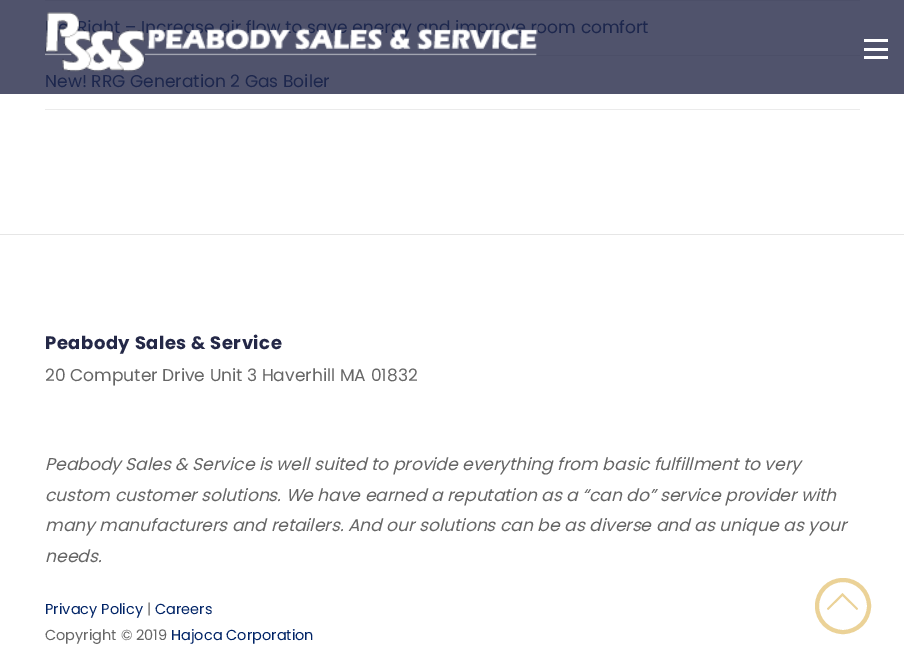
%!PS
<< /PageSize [904 670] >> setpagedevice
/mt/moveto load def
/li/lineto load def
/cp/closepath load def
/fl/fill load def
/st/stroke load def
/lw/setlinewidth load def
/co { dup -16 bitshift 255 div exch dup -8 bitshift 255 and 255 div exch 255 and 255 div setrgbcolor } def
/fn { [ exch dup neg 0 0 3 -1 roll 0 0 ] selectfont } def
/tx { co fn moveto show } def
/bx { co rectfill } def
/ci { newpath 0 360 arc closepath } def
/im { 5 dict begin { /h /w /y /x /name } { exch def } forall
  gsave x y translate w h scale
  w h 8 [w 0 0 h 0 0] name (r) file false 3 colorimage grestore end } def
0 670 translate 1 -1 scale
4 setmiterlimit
0 0 904 670 16#FFFFFF bx
0 0 904 94 16#50536C bx
864 56 24 3 16#FFFFFF bx
864 39 24 3 16#FFFFFF bx
864 48 24 3 16#FFFFFF bx
45 0 815 1 16#4C4F68 bx
45 55 815 1 16#4C4F68 bx
45 109 815 1 16#EBEBEB bx
0 234 904 1 16#E6E6E6 bx
16#EBD297 co
4 lw
843 606 26 ci st
858 608.5 mt 857 610 li 842.5 596 li 828 610 li 827 608.5 li 842.5 593 li cp fl
(FlexRight – Increase air flow to save energy and improve room comfort) 45 33 /Poppins-Regular 17.1 16#1D274D tx
(media/1.raw) 45 12 493 60 im
(New! RRG Generation 2 Gas Boiler) 45 87 /Poppins-Regular 17.1 16#1D274D tx
/Poppins-Bold 18 fn
16#242847 co
45 349 mt .5 0 (Peabody Sales & Service) ashow
(20 Computer Drive Unit 3 Haverhill MA 01832) 45 381 /Poppins-Regular 17.1 16#666666 tx
(Peabody Sales & Service is well suited to provide everything from basic fulfillment to very) 45 470 /Poppins-Italic 17.1 16#666666 tx
(custom customer solutions. We have earned a reputation as a “can do” service provider with) 45 501 /Poppins-Italic 17.1 16#666666 tx
(many manufacturers and retailers. And our solutions can be as diverse and as unique as your) 45 531 /Poppins-Italic 17.1 16#666666 tx
(needs.) 45 562 /Poppins-Italic 17.1 16#666666 tx
(Privacy Policy) 45 614 /Poppins-Regular 14.5 16#002366 tx
(|) 147 614 /Poppins-Regular 14.5 16#666666 tx
(Careers) 155 614 /Poppins-Regular 14.5 16#002366 tx
(Copyright © 2019) 45 640 /Poppins-Regular 14.5 16#666666 tx
(Hajoca Corporation) 171 640 /Poppins-Regular 14.5 16#002366 tx
showpage
